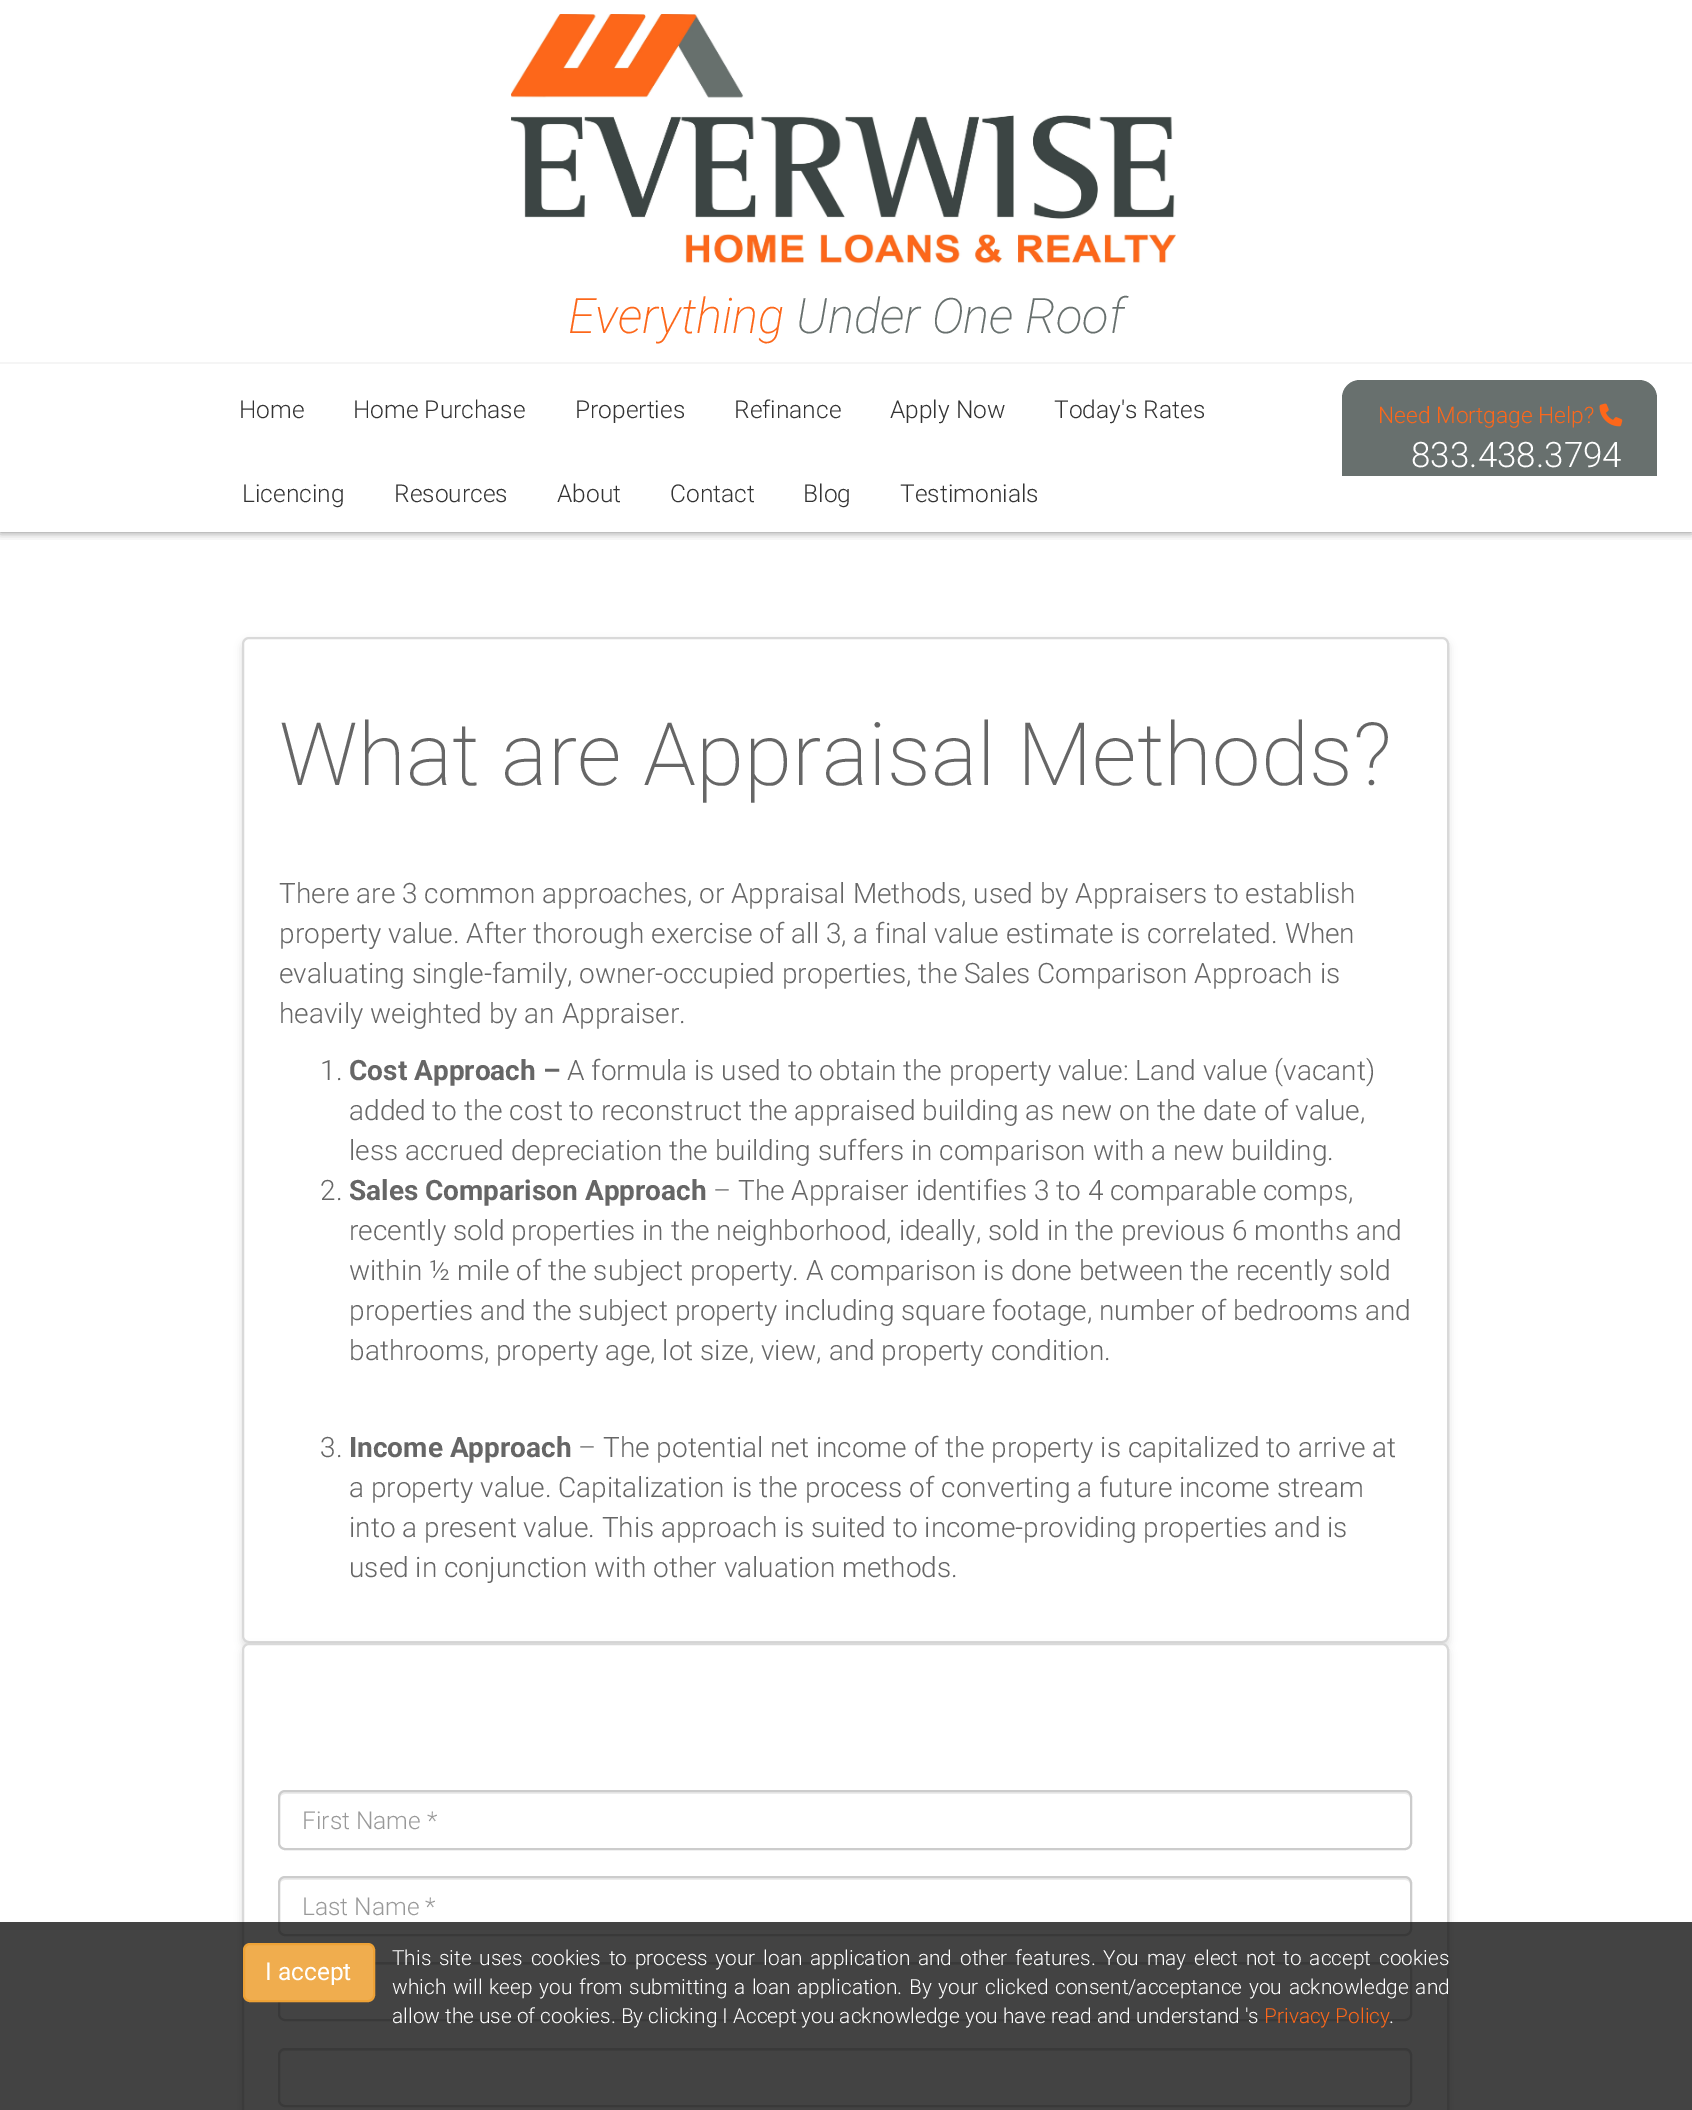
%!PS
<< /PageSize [1692 2110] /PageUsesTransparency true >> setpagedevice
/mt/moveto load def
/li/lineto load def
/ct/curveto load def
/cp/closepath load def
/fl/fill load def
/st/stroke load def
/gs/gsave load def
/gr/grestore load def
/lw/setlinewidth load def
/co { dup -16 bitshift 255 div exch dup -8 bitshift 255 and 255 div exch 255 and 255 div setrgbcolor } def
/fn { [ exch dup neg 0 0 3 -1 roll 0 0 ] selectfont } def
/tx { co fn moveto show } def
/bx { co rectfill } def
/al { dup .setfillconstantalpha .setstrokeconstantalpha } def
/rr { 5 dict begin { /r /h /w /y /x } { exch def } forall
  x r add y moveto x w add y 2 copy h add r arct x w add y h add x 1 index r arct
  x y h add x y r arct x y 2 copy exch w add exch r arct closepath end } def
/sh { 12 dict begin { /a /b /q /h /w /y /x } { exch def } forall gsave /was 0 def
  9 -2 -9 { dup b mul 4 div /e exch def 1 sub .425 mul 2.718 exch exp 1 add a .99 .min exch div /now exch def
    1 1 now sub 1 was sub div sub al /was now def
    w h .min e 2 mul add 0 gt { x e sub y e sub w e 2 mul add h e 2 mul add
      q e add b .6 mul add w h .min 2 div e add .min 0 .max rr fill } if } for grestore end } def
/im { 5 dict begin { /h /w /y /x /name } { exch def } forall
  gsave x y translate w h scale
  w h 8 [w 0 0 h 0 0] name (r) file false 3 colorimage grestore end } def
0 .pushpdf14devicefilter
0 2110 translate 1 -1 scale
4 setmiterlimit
0 0 1692 2110 16#FFFFFF bx
gs
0 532 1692 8 rectclip
16#000000 co
0 0 1692 532 0 4.5 .5 sh
gr
(media/1.raw) 511 14 665 250 im
0 362 1692 2 16#F5F5F5 bx
16#68706E co
1360 380 mt 1639 380 li 1649 380 1657 388 1657 398 ct 1657 476 li 1342 476 li 1342 398 li 1342 388 1350 380 1360 380 ct cp fl
(media/2.raw) 1599 403 24 24 im
16#000000 co
242 641 1207 1006 7 4 .12 sh
16#FFFFFF co
242 637 1207 1006 7 rr fl
0.15 al
16#000000 co
2 lw
243 638 1205 1004 6 rr st
1 al
242 1647 1207 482 7 4 .12 sh
16#FFFFFF co
242 1643 1207 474 7 rr fl
0.15 al
16#000000 co
243 1644 1205 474 6 rr st
1 al
16#ECECEC co
285 1794 mt 1405 1794 li 1408 1794 1410 1796 1410 1799 ct 1410 1844 li 1410 1847 li 1410 1846 1411 1844 1411 1843 ct 1411 1797 li 1411 1794 1409 1792 1406 1792 ct 285 1792 li 282 1792 280 1794 280 1797 ct 280 1799 li 280 1796 282 1794 285 1794 ct cp fl
16#CCCCCC co
279 1791 1132 58 6 rr st
16#ECECEC co
285 1880 mt 1405 1880 li 1408 1880 1410 1882 1410 1885 ct 1410 1930 li 1410 1933 li 1410 1932 1411 1930 1411 1929 ct 1411 1883 li 1411 1880 1409 1878 1406 1878 ct 285 1878 li 282 1878 280 1880 280 1883 ct 280 1885 li 280 1882 282 1880 285 1880 ct cp fl
16#CCCCCC co
279 1877 1132 58 6 rr st
16#ECECEC co
285 1965 mt 1405 1965 li 1408 1965 1410 1968 1410 1970 ct 1410 2016 li 1409 2019 li 1410 2018 1411 2016 1411 2015 ct 1411 1969 li 1411 1966 1409 1964 1406 1964 ct 285 1964 li 282 1964 280 1966 280 1969 ct 280 1970 li 280 1968 282 1965 285 1965 ct cp fl
16#CCCCCC co
279 1963 1132 57 6 rr st
16#ECECEC co
285 2051 mt 1405 2051 li 1408 2051 1410 2053 1410 2056 ct 1410 2103 li 1411 2102 1411 2101 1411 2100 ct 1411 2054 li 1411 2051 1409 2049 1406 2049 ct 285 2049 li 282 2049 280 2051 280 2054 ct 280 2056 li 280 2053 282 2051 285 2051 ct cp fl
16#CCCCCC co
279 2049 1132 57 6 rr st
0.8 al
0 1922 1692 188 16#141414 bx
1 al
16#F0AD4E co
244 1944 130 57 6 rr gs fl gr
16#EEA236 co
st
(Everything) 568 333 /Roboto-ExtraLightItalic 49 16#FC671A tx
(Under One Roof) 796 333 /Roboto-ExtraLightItalic 49 16#68706E tx
(Home) 239 418 /Roboto-Light 24.5 16#333333 tx
(Home Purchase) 353 418 /Roboto-Light 24.5 16#333333 tx
(Properties) 575 418 /Roboto-Light 24.5 16#333333 tx
(Refinance) 734 418 /Roboto-Light 24.5 16#333333 tx
(Apply Now) 890 418 /Roboto-Light 24.5 16#333333 tx
(Today's Rates) 1054 418 /Roboto-Light 24.5 16#333333 tx
(Licencing) 242 502 /Roboto-Light 24.5 16#333333 tx
(Resources) 394 502 /Roboto-Light 24.5 16#333333 tx
(About) 557 502 /Roboto-Light 24.5 16#333333 tx
(Contact) 670 502 /Roboto-Light 24.5 16#333333 tx
(Blog) 803 502 /Roboto-Light 24.5 16#333333 tx
(Testimonials) 900 502 /Roboto-Light 24.5 16#333333 tx
(Need Mortgage Help?) 1378 423 /Roboto-Light 22.75 16#FC671A tx
(833.438.3794) 1411 467 /Roboto-Light 35 16#FFFFFF tx
(What are Appraisal Methods?) 279 785 /Roboto-ExtraLight 87.5 16#666666 tx
(There are 3 common approaches, or Appraisal Methods, used by Appraisers to establish) 279 903 /Roboto-Light 28 16#666666 tx
(property value. After thorough exercise of all 3, a final value estimate is correlated. When) 279 943 /Roboto-Light 28 16#666666 tx
(evaluating single-family, owner-occupied properties, the Sales Comparison Approach is) 279 983 /Roboto-Light 28 16#666666 tx
(heavily weighted by an Appraiser.) 279 1023 /Roboto-Light 28 16#666666 tx
(1.) 320 1080 /Roboto-Light 28 16#666666 tx
(Cost Approach –) 349 1080 /Roboto-Bold 28 16#666666 tx
(A formula is used to obtain the property value: Land value \(vacant\)) 567 1080 /Roboto-Light 28 16#666666 tx
(added to the cost to reconstruct the appraised building as new on the date of value,) 349 1120 /Roboto-Light 28 16#666666 tx
(less accrued depreciation the building suffers in comparison with a new building.) 349 1160 /Roboto-Light 28 16#666666 tx
(2.) 320 1200 /Roboto-Light 28 16#666666 tx
(Sales Comparison Approach) 349 1200 /Roboto-Bold 28 16#666666 tx
(– The Appraiser identifies 3 to 4 comparable comps,) 713 1200 /Roboto-Light 28 16#666666 tx
(recently sold properties in the neighborhood, ideally, sold in the previous 6 months and) 349 1240 /Roboto-Light 28 16#666666 tx
(within ½ mile of the subject property. A comparison is done between the recently sold) 349 1280 /Roboto-Light 28 16#666666 tx
(properties and the subject property including square footage, number of bedrooms and) 349 1320 /Roboto-Light 28 16#666666 tx
(bathrooms, property age, lot size, view, and property condition.) 349 1360 /Roboto-Light 28 16#666666 tx
(3.) 320 1457 /Roboto-Light 28 16#666666 tx
(Income Approach) 349 1457 /Roboto-Bold 28 16#666666 tx
(– The potential net income of the property is capitalized to arrive at) 578 1457 /Roboto-Light 28 16#666666 tx
(a property value. Capitalization is the process of converting a future income stream) 349 1497 /Roboto-Light 28 16#666666 tx
(into a present value. This approach is suited to income-providing properties and is) 349 1537 /Roboto-Light 28 16#666666 tx
(used in conjunction with other valuation methods.) 349 1577 /Roboto-Light 28 16#666666 tx
(First Name *) 302 1829 /Roboto-Light 24.5 16#999999 tx
(Last Name *) 302 1915 /Roboto-Light 24.5 16#999999 tx
/Roboto-Light 20.82 fn
16#FFFFFF co
392 1965 mt 2.75 0 32 (This site uses cookies to process your loan application and other features. You may elect not to accept cookies) widthshow
(I accept) 265 1980 /Roboto-Regular 24.5 16#FFFFFF tx
/Roboto-Light 20.82 fn
392 1994 mt 1.6 0 32 (which will keep you from submitting a loan application. By your clicked consent/acceptance you acknowledge and) widthshow
(allow the use of cookies. By clicking I Accept you acknowledge you have read and understand 's) 392 2023 /Roboto-Light 20.82 16#FFFFFF tx
(Privacy Policy) 1264 2023 /Roboto-Light 20.82 16#FC671A tx
(.) 1389 2023 /Roboto-Light 20.82 16#FFFFFF tx
.poppdf14devicefilter showpage
